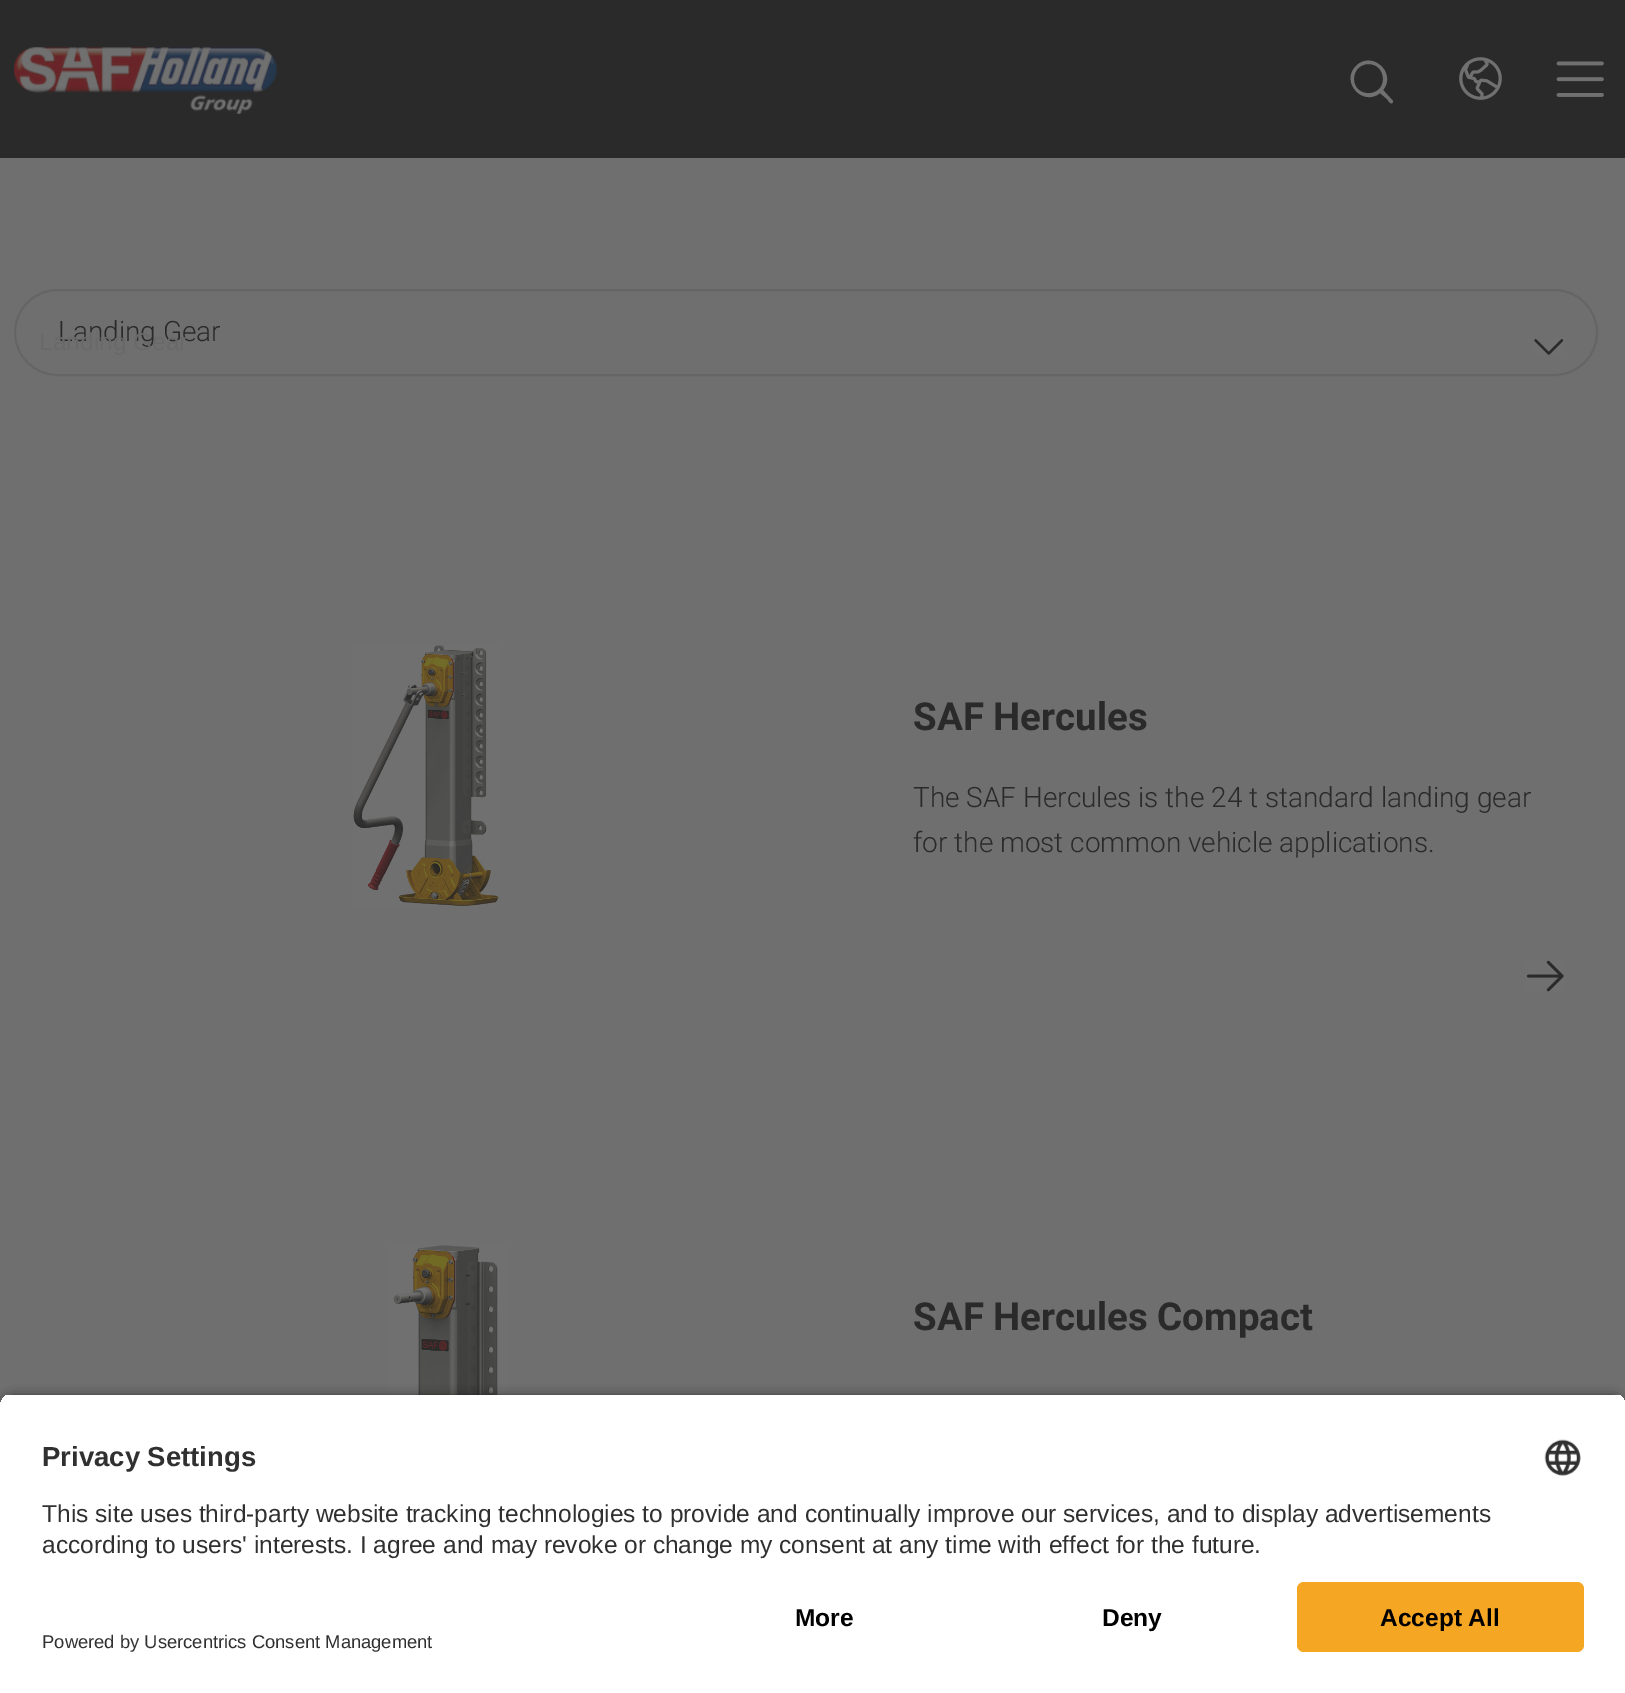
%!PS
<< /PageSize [1625 1693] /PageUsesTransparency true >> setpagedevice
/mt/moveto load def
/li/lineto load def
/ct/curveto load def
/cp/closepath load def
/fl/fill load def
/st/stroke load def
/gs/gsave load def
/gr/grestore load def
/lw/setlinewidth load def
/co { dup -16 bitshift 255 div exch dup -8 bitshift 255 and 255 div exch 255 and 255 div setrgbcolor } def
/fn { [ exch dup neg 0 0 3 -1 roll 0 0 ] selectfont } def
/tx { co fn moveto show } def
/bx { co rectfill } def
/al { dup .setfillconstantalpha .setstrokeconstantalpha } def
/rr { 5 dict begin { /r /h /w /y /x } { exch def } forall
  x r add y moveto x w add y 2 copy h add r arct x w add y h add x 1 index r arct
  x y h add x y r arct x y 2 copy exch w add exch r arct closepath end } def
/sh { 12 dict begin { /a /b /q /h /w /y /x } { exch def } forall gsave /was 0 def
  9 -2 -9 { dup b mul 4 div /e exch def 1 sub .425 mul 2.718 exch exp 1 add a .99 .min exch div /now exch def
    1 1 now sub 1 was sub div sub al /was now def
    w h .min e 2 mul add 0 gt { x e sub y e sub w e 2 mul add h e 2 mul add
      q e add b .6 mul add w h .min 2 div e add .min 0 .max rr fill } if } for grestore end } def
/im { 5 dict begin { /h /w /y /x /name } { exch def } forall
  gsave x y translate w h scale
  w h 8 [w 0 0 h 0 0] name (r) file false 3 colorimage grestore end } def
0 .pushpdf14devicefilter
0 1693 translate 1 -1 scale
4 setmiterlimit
0 0 1625 1693 16#6F6F6F bx
0 0 1625 158 16#2A2A2A bx
(media/1.raw) 14 47 263 67 im
16#707070 co
1393 101 mt 1383 90 li 1397 73 1372 50 1356 66 ct 1340 82 1363 107 1380 93 ct 1387 99 li 1388 100 1391 106 1393 102 ct cp 1354 79 mt 1354 59 1383 59 1383 79 ct 1383 98 1354 98 1354 79 ct cp fl
(media/2.raw) 1459 57 43 43 im
(media/3.raw) 1556 61 48 36 im
16#656565 co
2 lw
15 290 1582 85 42.5 rr st
(media/4.raw) 1534 339 30 16 im
(media/5.raw) 353 645 146 261 im
(media/6.raw) 1526 960 38 32 im
(media/7.raw) 389 1245 119 150 im
16#000000 co
0 1398 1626 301 14 6 .8 sh
gs
14 1393 mt 1612 1393 li 1619.5 1393 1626 1399.5 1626 1407 ct 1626 1568 li 0 1568 li 0 1407 li 0 1399.5 6.5 1393 14 1393 ct cp clip newpath
0 1395 1625 173 16#FFFFFF bx
gr
(media/8.raw) 1544 1439 37 37 im
0 1568 1625 125 16#FFFFFF bx
16#F5A623 co
1297 1582 287 70 7 rr fl
(Landing Gear) 58 341 /Roboto-Light 28 16#2A2A2A tx
(Landing Gear) 39 350 /LiberationSans-Regular 24.5 16#696969 tx
(SAF Hercules) 913 730 /Roboto-Bold 38.5 16#2A2A2A tx
(The SAF Hercules is the 24 t standard landing gear) 913 807 /Roboto-Light 28 16#2A2A2A tx
(for the most common vehicle applications.) 913 852 /Roboto-Light 28 16#2A2A2A tx
(SAF Hercules Compact) 913 1330 /Roboto-Bold 38.5 16#2A2A2A tx
(Privacy Settings) 42 1466 /LiberationSans-Bold 27.5 16#303030 tx
(This site uses third-party website tracking technologies to provide and continually improve our services, and to display advertisements) 42 1522 /LiberationSans-Regular 24.5 16#303030 tx
(according to users' interests. I agree and may revoke or change my consent at any time with effect for the future.) 42 1553 /LiberationSans-Regular 24.5 16#303030 tx
(More) 795 1626 /LiberationSans-Bold 24.5 16#000000 tx
(Deny) 1102 1626 /LiberationSans-Bold 24.5 16#000000 tx
(Accept All) 1380 1626 /LiberationSans-Bold 24.5 16#000000 tx
(Powered by Usercentrics Consent Management) 42 1648 /LiberationSans-Regular 18.4 16#303030 tx
.poppdf14devicefilter showpage
